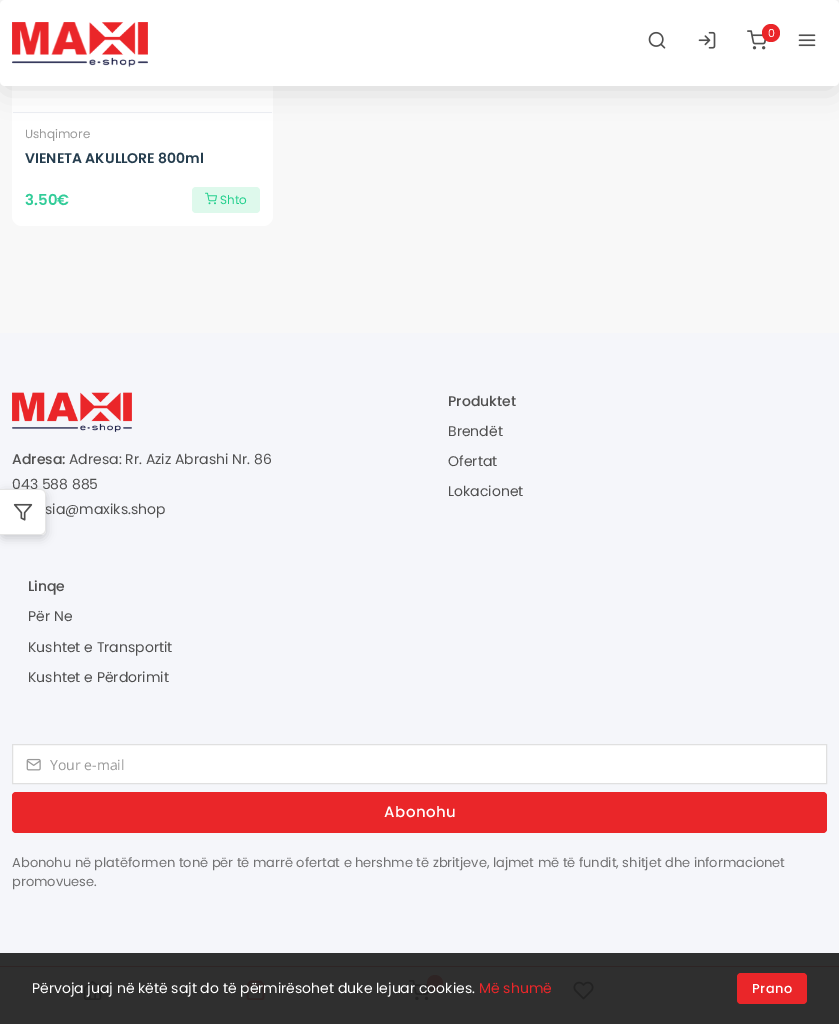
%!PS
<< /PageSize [839 1024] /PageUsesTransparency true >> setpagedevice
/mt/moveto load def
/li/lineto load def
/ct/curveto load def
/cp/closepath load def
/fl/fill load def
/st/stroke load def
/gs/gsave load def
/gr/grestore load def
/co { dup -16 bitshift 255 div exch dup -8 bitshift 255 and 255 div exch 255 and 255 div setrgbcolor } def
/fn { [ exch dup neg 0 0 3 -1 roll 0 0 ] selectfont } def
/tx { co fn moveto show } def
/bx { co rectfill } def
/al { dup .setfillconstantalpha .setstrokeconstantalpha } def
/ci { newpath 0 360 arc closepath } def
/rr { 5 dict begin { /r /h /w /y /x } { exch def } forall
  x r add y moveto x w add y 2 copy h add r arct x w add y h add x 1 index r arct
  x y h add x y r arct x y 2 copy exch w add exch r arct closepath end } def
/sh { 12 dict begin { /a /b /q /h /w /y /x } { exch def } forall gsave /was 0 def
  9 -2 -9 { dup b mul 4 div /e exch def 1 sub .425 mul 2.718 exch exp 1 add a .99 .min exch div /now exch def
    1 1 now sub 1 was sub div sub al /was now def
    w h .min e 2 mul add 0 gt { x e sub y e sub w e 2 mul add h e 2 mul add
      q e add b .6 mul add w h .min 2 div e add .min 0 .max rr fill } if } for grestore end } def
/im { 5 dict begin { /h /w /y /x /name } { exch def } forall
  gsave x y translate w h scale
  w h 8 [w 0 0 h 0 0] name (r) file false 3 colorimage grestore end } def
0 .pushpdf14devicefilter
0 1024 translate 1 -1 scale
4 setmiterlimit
0 0 839 1024 16#F8F8F8 bx
16#FFFFFF co
12 -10 261 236 10 rr fl
13 112 259 1 16#EDEFF4 bx
16#000000 co
6 13 827 74 0 15 .15 sh
16#FFFFFF co
0 0 839 86 5 rr fl
(media/1.raw) 12 22 136 45 im
(media/2.raw) 648 31 18 18 im
(media/3.raw) 698 31 18 18 im
(media/4.raw) 747 30 20 20 im
16#EA2629 co
771 33 9 ci fl
(media/5.raw) 798 34 18 13 im
16#DEF9EC co
192 187 68 26 4 rr fl
(media/6.raw) 205 192 12 13 im
0 333 839 620 16#F5F6FA bx
16#000000 co
0 492 46 46 5 5 .18 sh
0 953 839 16 16#2E2F2F bx
(media/8.raw) 12 392 120 40 im
16#FFFFFF co
12.5 744.5 mt 826.5 744.5 li 826.5 783.5 li 12.5 783.5 li cp gs fl gr
16#E0E0E0 co
st
(media/9.raw) 26 758 15 13 im
16#EA2629 co
12 792 815 41 4 rr fl
0 966 839 1 16#2E2424 bx
16#222222 co
0 967 839 55 0 5 .1 sh
0 969 839 55 16#2F2F2F bx
(media/10.raw) 83 980 19 20 im
(media/11.raw) 246 980 19 20 im
(media/12.raw) 409 980 21 20 im
16#2E2424 co
435 983 8 ci fl
(media/13.raw) 573 981 21 19 im
16#EA2629 co
737 973 70 31 4 rr fl
(0) 768 37 /Poppins-Regular 11 16#FFFFFF tx
(Ushqimore) 25 138 /Poppins-Regular 12 16#999999 tx
(VIENETA AKULLORE 800ml) 25 163 /Poppins-SemiBold 14 16#253D4E tx
(3.50€) 25 205 /Poppins-SemiBold 15 16#33CC99 tx
(Shto) 220 204 /Poppins-Regular 12 16#20CF8C tx
(Adresa:) 12 464 /Poppins-Medium 14 16#505050 tx
(Adresa: Rr. Aziz Abrashi Nr. 86) 69 464 /Poppins-Regular 14 16#505050 tx
(043 588 885) 12 489 /Poppins-Regular 14 16#505050 tx
(sia@maxiks.shop) 45 514 /Poppins-Regular 14 16#505050 tx
16#FFFFFF co
0 489 mt 41 489 li 44 489 46 491 46 494 ct 46 530 li 46 533 44 535 41 535 ct 0 535 li cp fl
16#E5E5E5 co
0 489 mt 41 489 li 44 489 46 491 46 494 ct 46 530 li 46 533 44 535 41 535 ct 0 535 li cp 0 490 mt 41 490 li 43 490 45 492 45 494 ct 45 530 li 45 532 43 534 41 534 ct 0 534 li cp eofill
(media/7.raw) 13 503 20 18 im
(Produktet) 448 406 /Poppins-Medium 14 16#505050 tx
(Brendët) 448 436 /Poppins-Regular 14 16#505050 tx
(Ofertat) 448 466 /Poppins-Regular 14 16#505050 tx
(Lokacionet) 448 496 /Poppins-Regular 14 16#505050 tx
(Linqe) 28 591 /Poppins-Medium 14 16#505050 tx
(Për Ne) 28 621 /Poppins-Regular 14 16#505050 tx
(Kushtet e Transportit) 28 652 /Poppins-Regular 14 16#505050 tx
(Kushtet e Përdorimit) 28 682 /Poppins-Regular 14 16#505050 tx
(Your e-mail) 50 770 /OpenSans-Regular 14 16#999999 tx
/Poppins-Medium 15 fn
16#FFFFFF co
384 817 mt .5 0 (Abonohu) ashow
(Abonohu në platëformen tonë për të marrë ofertat e hershme të zbritjeve, lajmet më të fundit, shitjet dhe informacionet) 12 867 /Poppins-Regular 13 16#717172 tx
(promovuese.) 12 886 /Poppins-Regular 13 16#717172 tx
(Përvoja juaj në këtë sajt do të përmirësohet duke lejuar cookies.) 32 993 /Poppins-Regular 14 16#FFFFFF tx
(Më shumë) 479 993 /Poppins-Regular 14 16#EA2629 tx
/Poppins-Medium 13 fn
16#FFFFFF co
752 993 mt .5 0 (Prano) ashow
.poppdf14devicefilter showpage
